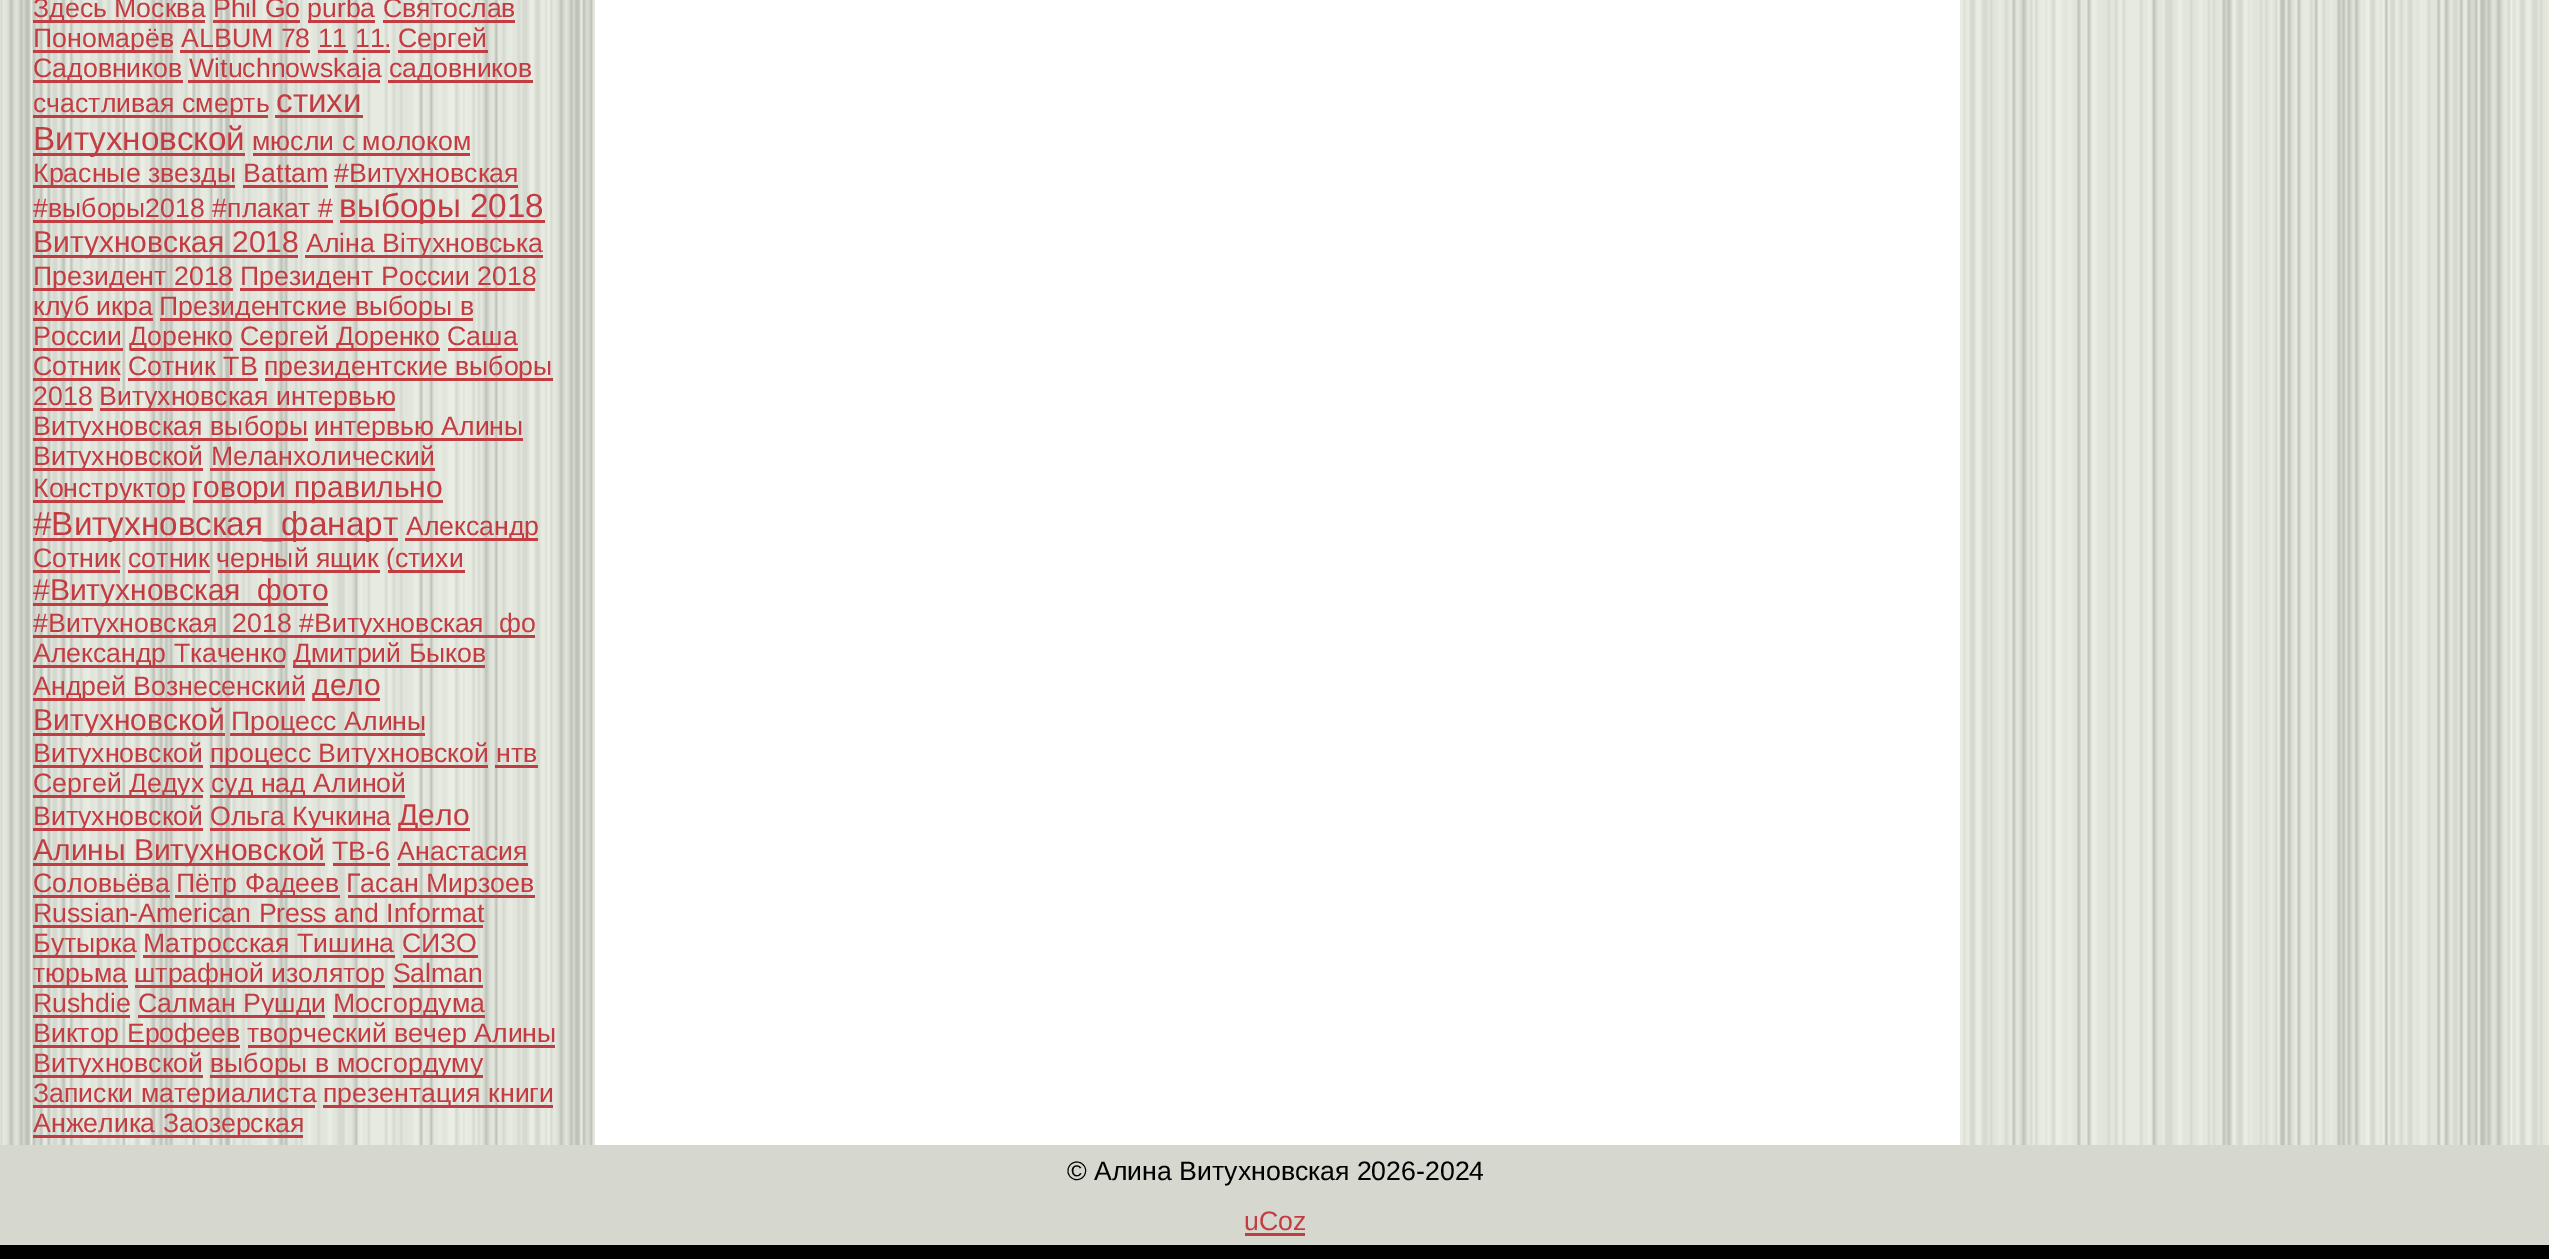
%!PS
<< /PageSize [2549 1259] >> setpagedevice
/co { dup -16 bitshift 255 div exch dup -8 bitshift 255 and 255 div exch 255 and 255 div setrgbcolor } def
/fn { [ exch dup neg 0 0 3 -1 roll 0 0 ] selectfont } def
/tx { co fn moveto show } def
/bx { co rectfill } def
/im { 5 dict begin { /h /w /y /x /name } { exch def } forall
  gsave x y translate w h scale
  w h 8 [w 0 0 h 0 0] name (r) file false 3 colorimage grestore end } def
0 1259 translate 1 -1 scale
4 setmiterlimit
0 0 2549 1259 16#FFFFFF bx
594 0 1 1145 16#E7EAE1 bx
(media/1.raw) 0 0 594 1145 im
33 20 172 3 16#C23C42 bx
213 20 87 3 16#C23C42 bx
308 20 67 3 16#C23C42 bx
383 20 132 3 16#C23C42 bx
33 50 140 3 16#C23C42 bx
180 50 130 3 16#C23C42 bx
318 50 30 3 16#C23C42 bx
353 50 37 3 16#C23C42 bx
398 50 90 3 16#C23C42 bx
33 80 150 3 16#C23C42 bx
188 80 192 3 16#C23C42 bx
388 80 145 3 16#C23C42 bx
33 115 235 3 16#C23C42 bx
275 115 88 3 16#C23C42 bx
33 153 212 3 16#C23C42 bx
253 153 217 3 16#C23C42 bx
33 185 202 3 16#C23C42 bx
243 185 85 3 16#C23C42 bx
335 185 183 3 16#C23C42 bx
33 220 300 3 16#C23C42 bx
340 220 205 3 16#C23C42 bx
33 255 265 3 16#C23C42 bx
305 255 238 3 16#C23C42 bx
33 288 200 3 16#C23C42 bx
240 288 295 3 16#C23C42 bx
33 318 120 3 16#C23C42 bx
160 318 313 3 16#C23C42 bx
33 348 90 3 16#C23C42 bx
130 348 103 3 16#C23C42 bx
240 348 200 3 16#C23C42 bx
448 348 70 3 16#C23C42 bx
33 378 87 3 16#C23C42 bx
128 378 130 3 16#C23C42 bx
265 378 288 3 16#C23C42 bx
33 408 60 3 16#C23C42 bx
100 408 295 3 16#C23C42 bx
33 438 275 3 16#C23C42 bx
315 438 208 3 16#C23C42 bx
33 468 170 3 16#C23C42 bx
210 468 225 3 16#C23C42 bx
33 500 152 3 16#C23C42 bx
193 500 250 3 16#C23C42 bx
33 538 365 3 16#C23C42 bx
405 538 133 3 16#C23C42 bx
33 570 87 3 16#C23C42 bx
128 570 82 3 16#C23C42 bx
218 570 162 3 16#C23C42 bx
388 570 77 3 16#C23C42 bx
33 603 295 3 16#C23C42 bx
33 635 502 3 16#C23C42 bx
33 665 252 3 16#C23C42 bx
293 665 192 3 16#C23C42 bx
33 698 272 3 16#C23C42 bx
313 698 67 3 16#C23C42 bx
33 733 192 3 16#C23C42 bx
230 733 195 3 16#C23C42 bx
33 765 170 3 16#C23C42 bx
210 765 278 3 16#C23C42 bx
495 765 43 3 16#C23C42 bx
33 795 170 3 16#C23C42 bx
210 795 195 3 16#C23C42 bx
33 828 170 3 16#C23C42 bx
210 828 180 3 16#C23C42 bx
398 828 72 3 16#C23C42 bx
33 863 292 3 16#C23C42 bx
333 863 57 3 16#C23C42 bx
398 863 130 3 16#C23C42 bx
33 895 137 3 16#C23C42 bx
175 895 165 3 16#C23C42 bx
348 895 187 3 16#C23C42 bx
33 925 450 3 16#C23C42 bx
33 955 102 3 16#C23C42 bx
143 955 252 3 16#C23C42 bx
403 955 75 3 16#C23C42 bx
33 985 95 3 16#C23C42 bx
135 985 250 3 16#C23C42 bx
393 985 90 3 16#C23C42 bx
33 1015 97 3 16#C23C42 bx
138 1015 187 3 16#C23C42 bx
333 1015 152 3 16#C23C42 bx
33 1045 207 3 16#C23C42 bx
248 1045 307 3 16#C23C42 bx
33 1075 170 3 16#C23C42 bx
210 1075 273 3 16#C23C42 bx
33 1105 282 3 16#C23C42 bx
323 1105 230 3 16#C23C42 bx
33 1135 270 3 16#C23C42 bx
1960 0 589 1145 16#E7EAE1 bx
(media/2.raw) 1961 0 586 1145 im
0 1245 2549 14 16#000000 bx
0 1145 2549 100 16#D6D7CF bx
1245 1233 60 3 16#C23C42 bx
(Здесь Москва Phil Go) 33 17 /LiberationSans-Regular 26.7 16#C23C42 tx
(purba Святослав) 307 17 /LiberationSans-Regular 26.7 16#C23C42 tx
(Пономарёв ALBUM 78 11 11.) 33 47 /LiberationSans-Regular 26.7 16#C23C42 tx
(Сергей) 398 47 /LiberationSans-Regular 26.7 16#C23C42 tx
(Садовников) 33 77 /LiberationSans-Regular 26.7 16#C23C42 tx
(Wituchnowskaja) 189 77 /LiberationSans-Regular 26.7 16#C23C42 tx
(садовников) 389 77 /LiberationSans-Regular 26.7 16#C23C42 tx
(счастливая смерть) 33 112 /LiberationSans-Regular 26.7 16#C23C42 tx
(стихи) 276 112 /LiberationSans-Regular 33.25 16#C23C42 tx
(Витухновской) 33 150 /LiberationSans-Regular 33.25 16#C23C42 tx
(мюсли с молоком) 252 150 /LiberationSans-Regular 26.7 16#C23C42 tx
(Красные звезды Battam) 33 182 /LiberationSans-Regular 26.7 16#C23C42 tx
(#Витухновская) 334 182 /LiberationSans-Regular 26.7 16#C23C42 tx
(#выборы2018 #плакат #) 33 217 /LiberationSans-Regular 26.7 16#C23C42 tx
(выборы 2018) 339 217 /LiberationSans-Regular 33.25 16#C23C42 tx
(Витухновская 2018) 33 252 /LiberationSans-Regular 30 16#C23C42 tx
(Аліна Вітухновська) 306 252 /LiberationSans-Regular 26.7 16#C23C42 tx
(Президент 2018) 33 285 /LiberationSans-Regular 26.7 16#C23C42 tx
(Президент России 2018) 240 285 /LiberationSans-Regular 26.7 16#C23C42 tx
(клуб икра) 33 315 /LiberationSans-Regular 26.7 16#C23C42 tx
(Президентские выборы в) 159 315 /LiberationSans-Regular 26.7 16#C23C42 tx
(России) 33 345 /LiberationSans-Regular 26.7 16#C23C42 tx
(Доренко) 129 345 /LiberationSans-Regular 26.7 16#C23C42 tx
(Сергей Доренко Саша) 240 345 /LiberationSans-Regular 26.7 16#C23C42 tx
(Сотник Сотник ТВ) 33 375 /LiberationSans-Regular 26.7 16#C23C42 tx
(президентские выборы) 264 375 /LiberationSans-Regular 26.7 16#C23C42 tx
(2018) 33 405 /LiberationSans-Regular 26.7 16#C23C42 tx
(Витухновская интервью) 99 405 /LiberationSans-Regular 26.7 16#C23C42 tx
(Витухновская выборы) 33 435 /LiberationSans-Regular 26.7 16#C23C42 tx
(интервью Алины) 314 435 /LiberationSans-Regular 26.7 16#C23C42 tx
(Витухновской Меланхолический) 33 465 /LiberationSans-Regular 26.7 16#C23C42 tx
(Конструктор) 33 497 /LiberationSans-Regular 26.7 16#C23C42 tx
(говори правильно) 192 497 /LiberationSans-Regular 30 16#C23C42 tx
(#Витухновская_фанарт) 33 535 /LiberationSans-Regular 33.25 16#C23C42 tx
(Александр) 406 535 /LiberationSans-Regular 26.7 16#C23C42 tx
(Сотник сотник) 33 567 /LiberationSans-Regular 26.7 16#C23C42 tx
(черный ящик) 216 567 /LiberationSans-Regular 26.7 16#C23C42 tx
(\(стихи) 386 567 /LiberationSans-Regular 26.7 16#C23C42 tx
(#Витухновская_фото) 33 600 /LiberationSans-Regular 30 16#C23C42 tx
(#Витухновская_2018 #Витухновская_фо) 33 632 /LiberationSans-Regular 26.7 16#C23C42 tx
(Александр Ткаченко) 33 662 /LiberationSans-Regular 26.7 16#C23C42 tx
(Дмитрий Быков) 293 662 /LiberationSans-Regular 26.7 16#C23C42 tx
(Андрей Вознесенский) 33 695 /LiberationSans-Regular 26.7 16#C23C42 tx
(дело) 312 695 /LiberationSans-Regular 30 16#C23C42 tx
(Витухновской) 33 730 /LiberationSans-Regular 30 16#C23C42 tx
(Процесс Алины) 231 730 /LiberationSans-Regular 26.7 16#C23C42 tx
(Витухновской) 33 762 /LiberationSans-Regular 26.7 16#C23C42 tx
(процесс Витухновской нтв) 210 762 /LiberationSans-Regular 26.7 16#C23C42 tx
(Сергей Дедух) 33 792 /LiberationSans-Regular 26.7 16#C23C42 tx
(суд над Алиной) 211 792 /LiberationSans-Regular 26.7 16#C23C42 tx
(Витухновской) 33 825 /LiberationSans-Regular 26.7 16#C23C42 tx
(Ольга Кучкина) 210 825 /LiberationSans-Regular 26.7 16#C23C42 tx
(Дело) 398 825 /LiberationSans-Regular 30 16#C23C42 tx
(Алины Витухновской) 33 860 /LiberationSans-Regular 30 16#C23C42 tx
(ТВ-6 Анастасия) 332 860 /LiberationSans-Regular 26.7 16#C23C42 tx
(Соловьёва) 33 892 /LiberationSans-Regular 26.7 16#C23C42 tx
(Пётр Фадеев) 176 892 /LiberationSans-Regular 26.7 16#C23C42 tx
(Гасан Мирзоев) 346 892 /LiberationSans-Regular 26.7 16#C23C42 tx
(Russian-American Press and Informat) 33 922 /LiberationSans-Regular 26.7 16#C23C42 tx
(Бутырка) 33 952 /LiberationSans-Regular 26.7 16#C23C42 tx
(Матросская Тишина СИЗО) 143 952 /LiberationSans-Regular 26.7 16#C23C42 tx
(тюрьма) 33 982 /LiberationSans-Regular 26.7 16#C23C42 tx
(штрафной изолятор Salman) 134 982 /LiberationSans-Regular 26.7 16#C23C42 tx
(Rushdie) 33 1012 /LiberationSans-Regular 26.7 16#C23C42 tx
(Салман Рушди) 138 1012 /LiberationSans-Regular 26.7 16#C23C42 tx
(Мосгордума) 333 1012 /LiberationSans-Regular 26.7 16#C23C42 tx
(Виктор Ерофеев) 33 1042 /LiberationSans-Regular 26.7 16#C23C42 tx
(творческий вечер Алины) 247 1042 /LiberationSans-Regular 26.7 16#C23C42 tx
(Витухновской) 33 1072 /LiberationSans-Regular 26.7 16#C23C42 tx
(выборы в мосгордуму) 210 1072 /LiberationSans-Regular 26.7 16#C23C42 tx
(Записки материалиста) 33 1102 /LiberationSans-Regular 26.7 16#C23C42 tx
(презентация книги) 323 1102 /LiberationSans-Regular 26.7 16#C23C42 tx
(Анжелика Заозерская) 33 1132 /LiberationSans-Regular 26.7 16#C23C42 tx
(© Алина Витухновская 2026-2024) 1067 1180 /LiberationSans-Regular 26.7 16#000000 tx
(uCoz) 1244 1230 /LiberationSans-Regular 26.7 16#C23C42 tx
showpage
